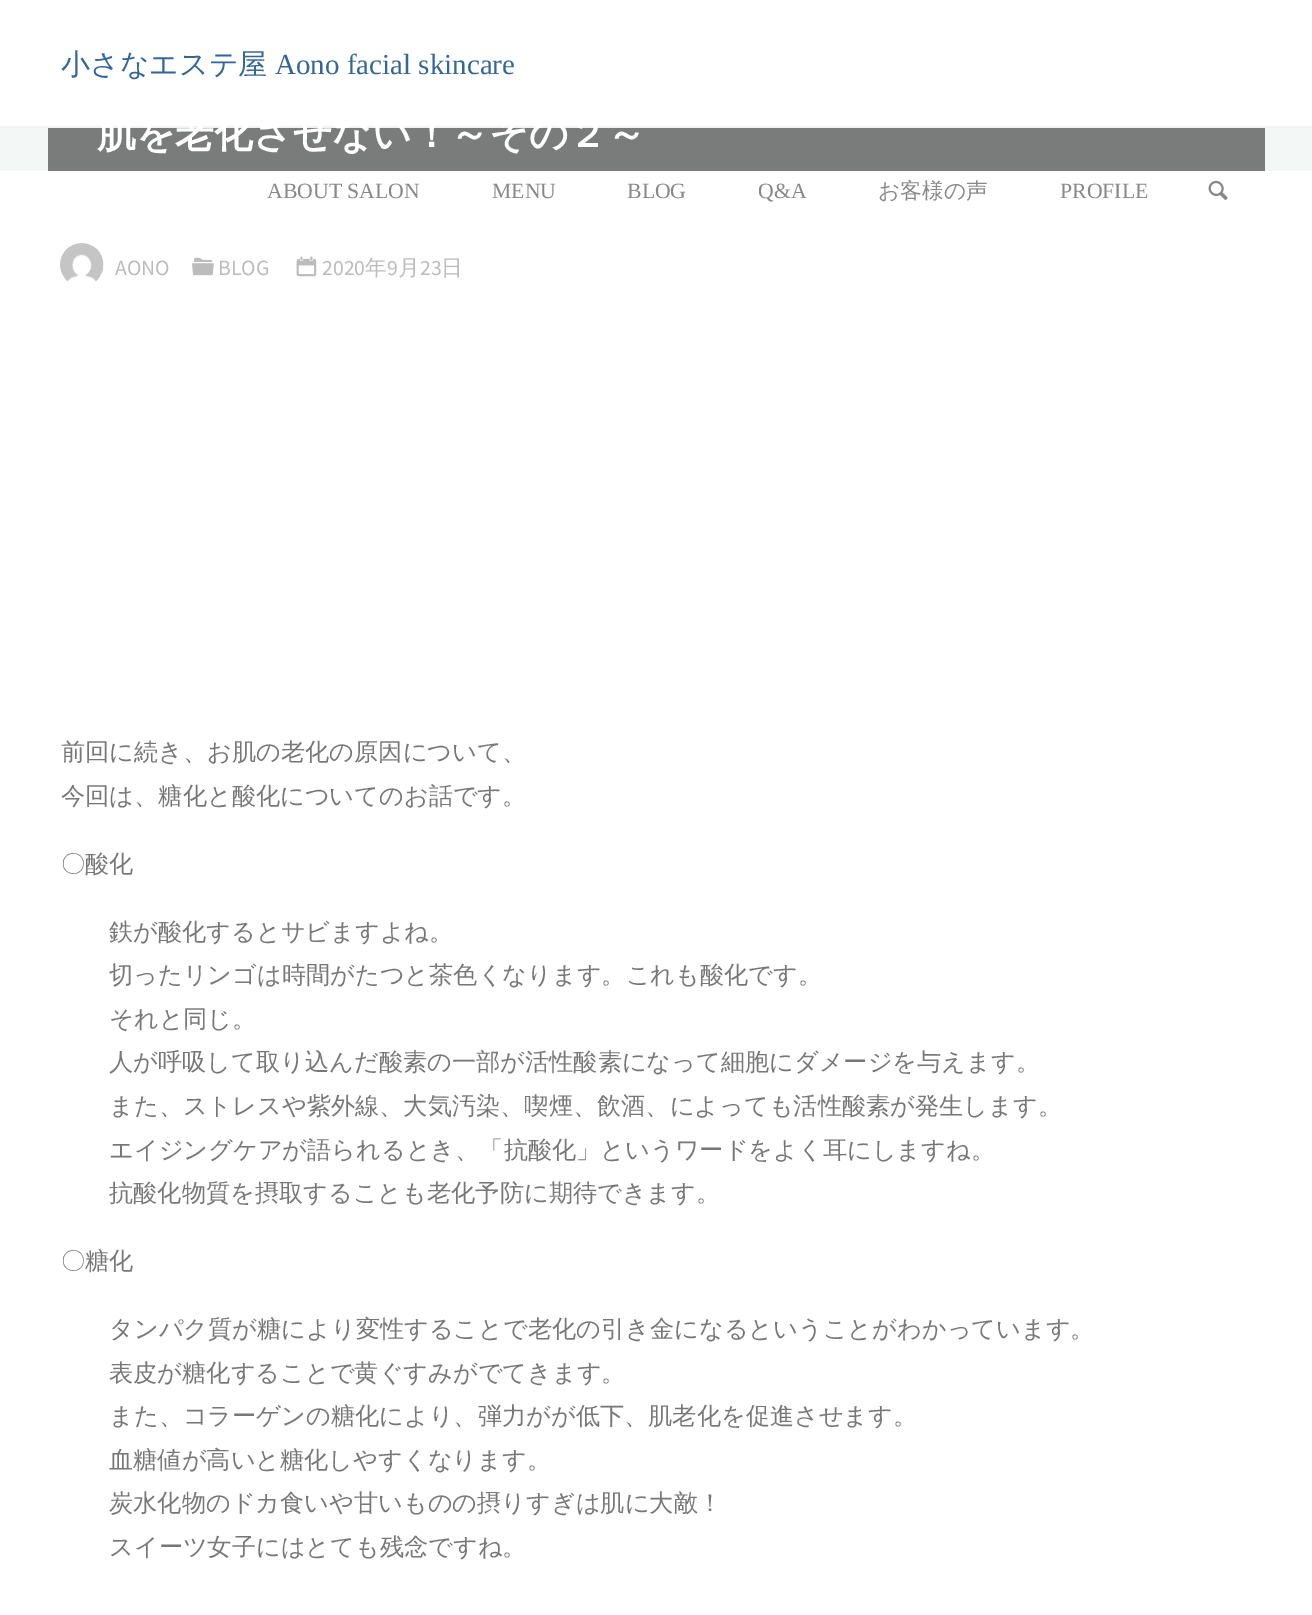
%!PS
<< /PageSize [1312 1615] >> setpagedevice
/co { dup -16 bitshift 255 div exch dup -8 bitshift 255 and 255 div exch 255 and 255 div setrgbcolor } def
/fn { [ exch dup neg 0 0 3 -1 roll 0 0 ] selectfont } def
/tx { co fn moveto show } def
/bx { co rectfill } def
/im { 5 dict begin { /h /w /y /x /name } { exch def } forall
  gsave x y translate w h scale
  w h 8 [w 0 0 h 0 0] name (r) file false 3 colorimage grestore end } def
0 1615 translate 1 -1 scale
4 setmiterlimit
0 0 1312 1615 16#F3F7F5 bx
0 0 1312 126 16#FFFFFF bx
0 126 1312 2 16#F2F2F2 bx
0 171 1312 1444 16#FFFFFF bx
(media/1.raw) 1208 180 20 20 im
48 128 1217 43 16#7A7C7B bx
(media/2.raw) 60 243 44 39 im
(media/3.raw) 192 257 22 19 im
(media/4.raw) 296 256 21 21 im
(小さなエステ屋) 61 74 /WenQuanYiZenHei-Medium 29 16#336699 tx
(Aono facial skincare) 275 74 /LiberationSerif-Regular 29 16#336699 tx
(ABOUT SALON) 267 198 /LiberationSerif-Regular 21.75 16#888888 tx
(MENU) 492 198 /LiberationSerif-Regular 21.75 16#888888 tx
(BLOG) 627 198 /LiberationSerif-Regular 21.75 16#888888 tx
(Q&A) 758 198 /LiberationSerif-Regular 21.75 16#888888 tx
(お客様の声) 878 198 /WenQuanYiZenHei-Medium 21.75 16#888888 tx
(PROFILE) 1060 198 /LiberationSerif-Regular 21.75 16#888888 tx
(肌を老化させない！～その２～) 97 147 /WenQuanYiZenHei-Bold 38.75 16#FFFFFF tx
(AONO) 115 275 /SourceSansPro-Regular 21.75 16#BCBCBC tx
(BLOG) 218 275 /SourceSansPro-Regular 21.75 16#BCBCBC tx
(2020) 322 275 /SourceSansPro-Regular 21.75 16#BCBCBC tx
(年) 365 275 /WenQuanYiZenHei-Medium 21.75 16#BCBCBC tx
(9) 387 275 /SourceSansPro-Regular 21.75 16#BCBCBC tx
(月) 398 275 /WenQuanYiZenHei-Medium 21.75 16#BCBCBC tx
(23) 420 275 /SourceSansPro-Regular 21.75 16#BCBCBC tx
(日) 441 275 /WenQuanYiZenHei-Medium 21.75 16#BCBCBC tx
(前回に続き、お肌の老化の原因について、) 61 760 /WenQuanYiZenHei-Medium 24.2 16#777777 tx
(今回は、糖化と酸化についてのお話です。) 61 804 /WenQuanYiZenHei-Medium 24.2 16#777777 tx
(〇酸化) 61 872 /WenQuanYiZenHei-Medium 24.2 16#777777 tx
(鉄が酸化するとサビますよね。) 109 940 /WenQuanYiZenHei-Medium 24.2 16#777777 tx
(切ったリンゴは時間がたつと茶色くなります。これも酸化です。) 109 983 /WenQuanYiZenHei-Medium 24.2 16#777777 tx
(それと同じ。) 109 1027 /WenQuanYiZenHei-Medium 24.2 16#777777 tx
(人が呼吸して取り込んだ酸素の一部が活性酸素になって細胞にダメージを与えます。) 109 1070 /WenQuanYiZenHei-Medium 24.2 16#777777 tx
(また、ストレスや紫外線、大気汚染、喫煙、飲酒、によっても活性酸素が発生します。) 109 1114 /WenQuanYiZenHei-Medium 24.2 16#777777 tx
(エイジングケアが語られるとき、「抗酸化」というワードをよく耳にしますね。) 109 1158 /WenQuanYiZenHei-Medium 24.2 16#777777 tx
(抗酸化物質を摂取することも老化予防に期待できます。) 109 1201 /WenQuanYiZenHei-Medium 24.2 16#777777 tx
(〇糖化) 61 1269 /WenQuanYiZenHei-Medium 24.2 16#777777 tx
(タンパク質が糖により変性することで老化の引き金になるということがわかっています。) 109 1337 /WenQuanYiZenHei-Medium 24.2 16#777777 tx
(表皮が糖化することで黄ぐすみがでてきます。) 109 1381 /WenQuanYiZenHei-Medium 24.2 16#777777 tx
(また、コラーゲンの糖化により、弾力がが低下、肌老化を促進させます。) 109 1424 /WenQuanYiZenHei-Medium 24.2 16#777777 tx
(血糖値が高いと糖化しやすくなります。) 109 1468 /WenQuanYiZenHei-Medium 24.2 16#777777 tx
(炭水化物のドカ食いや甘いものの摂りすぎは肌に大敵！) 109 1511 /WenQuanYiZenHei-Medium 24.2 16#777777 tx
(スイーツ女子にはとても残念ですね。) 109 1555 /WenQuanYiZenHei-Medium 24.2 16#777777 tx
showpage
